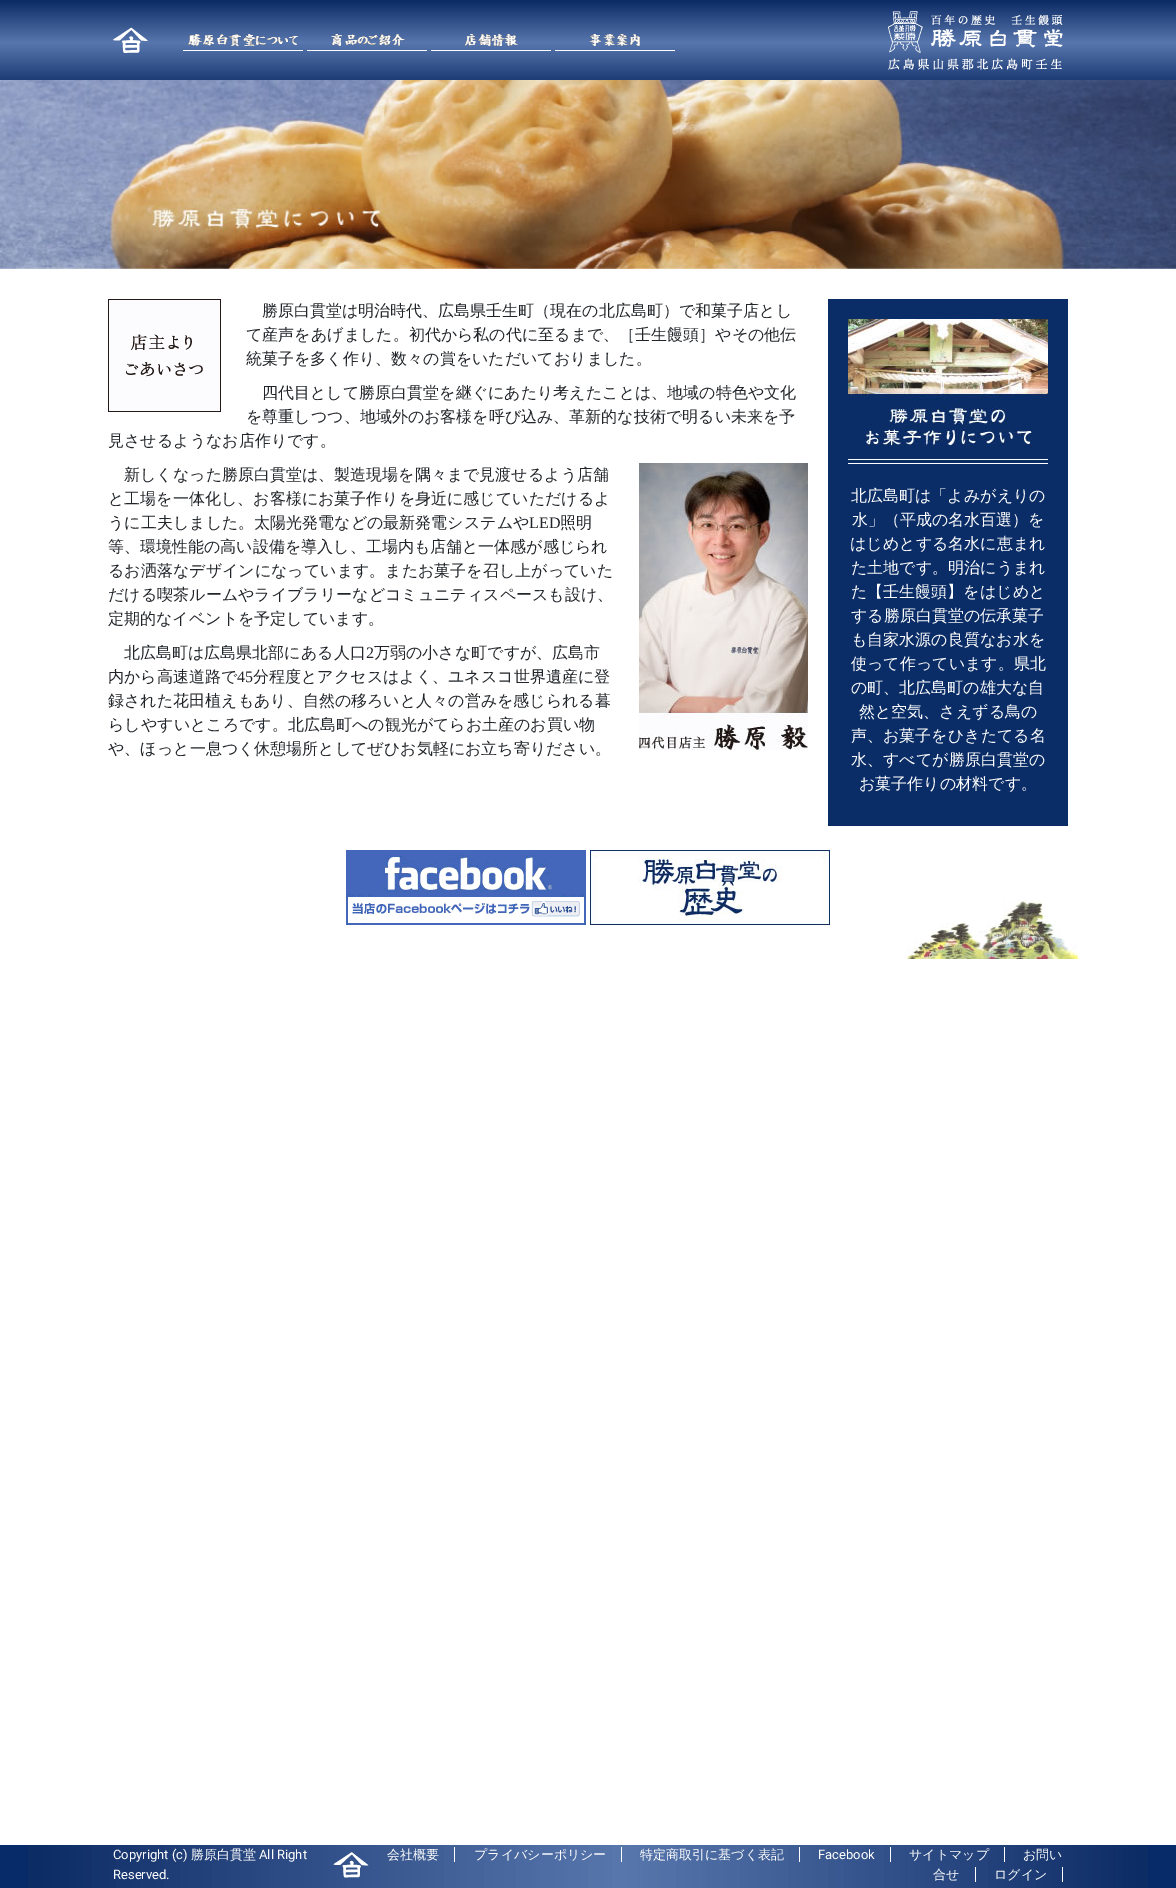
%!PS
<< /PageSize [1176 1888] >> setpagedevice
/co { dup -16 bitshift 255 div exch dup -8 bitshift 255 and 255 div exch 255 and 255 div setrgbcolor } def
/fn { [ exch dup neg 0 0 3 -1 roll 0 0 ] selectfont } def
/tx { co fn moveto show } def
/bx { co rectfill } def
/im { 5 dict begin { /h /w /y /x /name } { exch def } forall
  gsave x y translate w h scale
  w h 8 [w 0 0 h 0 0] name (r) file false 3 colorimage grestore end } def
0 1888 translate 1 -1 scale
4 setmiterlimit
0 0 1176 1888 16#FFFFFF bx
(media/1.raw) 0 0 1176 80 im
(media/2.raw) 113 27 35 26 im
(media/3.raw) 183 34 120 17 im
(media/4.raw) 307 34 120 17 im
(media/5.raw) 431 34 120 17 im
(media/6.raw) 555 34 120 17 im
(media/7.raw) 888 11 175 59 im
(media/8.raw) 0 80 1176 189 im
(media/9.raw) 906 900 172 59 im
(media/10.raw) 108 299 113 113 im
(media/11.raw) 639 463 169 287 im
828 299 240 527 16#0B2D67 bx
(media/12.raw) 848 319 200 145 im
(media/13.raw) 346 850 240 75 im
(media/14.raw) 590 850 240 75 im
0 1845 1176 43 16#072A69 bx
(media/15.raw) 28 1845 1120 43 im
(media/16.raw) 333 1852 36 26 im
454 1847 1 15 16#FFFFFF bx
621 1847 1 15 16#FFFFFF bx
799 1847 1 15 16#FFFFFF bx
890 1847 1 15 16#FFFFFF bx
1004 1847 1 15 16#FFFFFF bx
975 1867 1 15 16#FFFFFF bx
1062 1867 1 15 16#FFFFFF bx
(勝原白貫堂は明治時代、広島県壬生町（現在の北広島町）で和菓子店とし) 262 316 /WenQuanYiZenHei-Medium 16 16#212529 tx
(て産声をあげました。初代から私の代に至るまで、［壬生饅頭］やその他伝) 246 340 /WenQuanYiZenHei-Medium 16 16#212529 tx
(統菓子を多く作り、数々の賞をいただいておりました。) 246 364 /WenQuanYiZenHei-Medium 16 16#212529 tx
(四代目として勝原白貫堂を継ぐにあたり考えたことは、地域の特色や文化) 262 398 /WenQuanYiZenHei-Medium 16 16#212529 tx
(を尊重しつつ、地域外のお客様を呼び込み、革新的な技術で明るい未来を予) 246 422 /WenQuanYiZenHei-Medium 16 16#212529 tx
(見させるようなお店作りです。) 108 446 /WenQuanYiZenHei-Medium 16 16#212529 tx
(新しくなった勝原白貫堂は、製造現場を隅々まで見渡せるよう店舗) 124 480 /WenQuanYiZenHei-Medium 16 16#212529 tx
(と工場を一体化し、お客様にお菓子作りを身近に感じていただけるよ) 108 504 /WenQuanYiZenHei-Medium 16 16#212529 tx
(うに工夫しました。太陽光発電などの最新発電システムや) 108 528 /WenQuanYiZenHei-Medium 16 16#212529 tx
(LED) 529 528 /LiberationSerif-Regular 16 16#212529 tx
(照明) 560 528 /WenQuanYiZenHei-Medium 16 16#212529 tx
(等、環境性能の高い設備を導入し、工場内も店舗と一体感が感じられ) 108 552 /WenQuanYiZenHei-Medium 16 16#212529 tx
(るお洒落なデザインになっています。またお菓子を召し上がっていた) 108 576 /WenQuanYiZenHei-Medium 16 16#212529 tx
(だける喫茶ルームやライブラリーなどコミュニティスペースも設け、) 108 600 /WenQuanYiZenHei-Medium 16 16#212529 tx
(定期的なイベントを予定しています。) 108 624 /WenQuanYiZenHei-Medium 16 16#212529 tx
(北広島町は広島県北部にある人口) 124 658 /WenQuanYiZenHei-Medium 16 16#212529 tx
(2) 366 658 /LiberationSerif-Regular 16 16#212529 tx
(万弱の小さな町ですが、広島市) 374 658 /WenQuanYiZenHei-Medium 16 16#212529 tx
(内から高速道路で) 108 682 /WenQuanYiZenHei-Medium 16 16#212529 tx
(45) 237 682 /LiberationSerif-Regular 16 16#212529 tx
(分程度とアクセスはよく、ユネスコ世界遺産に登) 253 682 /WenQuanYiZenHei-Medium 16 16#212529 tx
(録された花田植えもあり、自然の移ろいと人々の営みを感じられる暮) 108 706 /WenQuanYiZenHei-Medium 16 16#212529 tx
(らしやすいところです。北広島町への観光がてらお土産のお買い物) 108 730 /WenQuanYiZenHei-Medium 16 16#212529 tx
(や、ほっと一息つく休憩場所としてぜひお気軽にお立ち寄りださい。) 108 754 /WenQuanYiZenHei-Medium 16 16#212529 tx
(北広島町は「よみがえりの) 851 501 /WenQuanYiZenHei-Medium 16 16#FFFFFF tx
(水」（平成の名水百選）を) 852 525 /WenQuanYiZenHei-Medium 16 16#FFFFFF tx
(はじめとする名水に恵まれ) 850 549 /WenQuanYiZenHei-Medium 16 16#FFFFFF tx
(た土地です。明治にうまれ) 851 573 /WenQuanYiZenHei-Medium 16 16#FFFFFF tx
(た【壬生饅頭】をはじめと) 851 597 /WenQuanYiZenHei-Medium 16 16#FFFFFF tx
(する勝原白貫堂の伝承菓子) 851 621 /WenQuanYiZenHei-Medium 16 16#FFFFFF tx
(も自家水源の良質なお水を) 851 645 /WenQuanYiZenHei-Medium 16 16#FFFFFF tx
(使って作っています。県北) 851 669 /WenQuanYiZenHei-Medium 16 16#FFFFFF tx
(の町、北広島町の雄大な自) 851 693 /WenQuanYiZenHei-Medium 16 16#FFFFFF tx
(然と空気、さえずる鳥の) 859 717 /WenQuanYiZenHei-Medium 16 16#FFFFFF tx
(声、お菓子をひきたてる名) 851 741 /WenQuanYiZenHei-Medium 16 16#FFFFFF tx
(水、すべてが勝原白貫堂の) 851 765 /WenQuanYiZenHei-Medium 16 16#FFFFFF tx
(お菓子作りの材料です。) 859 789 /WenQuanYiZenHei-Medium 16 16#FFFFFF tx
(Copyright \(c\)) 113 1859 /Roboto-Regular 13 16#FFFFFF tx
(勝原白貫堂) 191 1859 /WenQuanYiZenHei-Medium 13 16#FFFFFF tx
(All Right) 259 1859 /Roboto-Regular 13 16#FFFFFF tx
(Reserved.) 113 1879 /Roboto-Regular 13 16#FFFFFF tx
(会社概要) 387 1859 /WenQuanYiZenHei-Medium 13 16#FFFFFF tx
(プライバシーポリシー) 474 1859 /WenQuanYiZenHei-Medium 13 16#FFFFFF tx
(特定商取引に基づく表記) 640 1859 /WenQuanYiZenHei-Medium 13 16#FFFFFF tx
(Facebook) 818 1859 /Roboto-Regular 13 16#FFFFFF tx
(サイトマップ) 909 1859 /WenQuanYiZenHei-Medium 13 16#FFFFFF tx
(お問い) 1023 1859 /WenQuanYiZenHei-Medium 13 16#FFFFFF tx
(合せ) 933 1879 /WenQuanYiZenHei-Medium 13 16#FFFFFF tx
(ログイン) 994 1879 /WenQuanYiZenHei-Medium 13 16#FFFFFF tx
showpage
